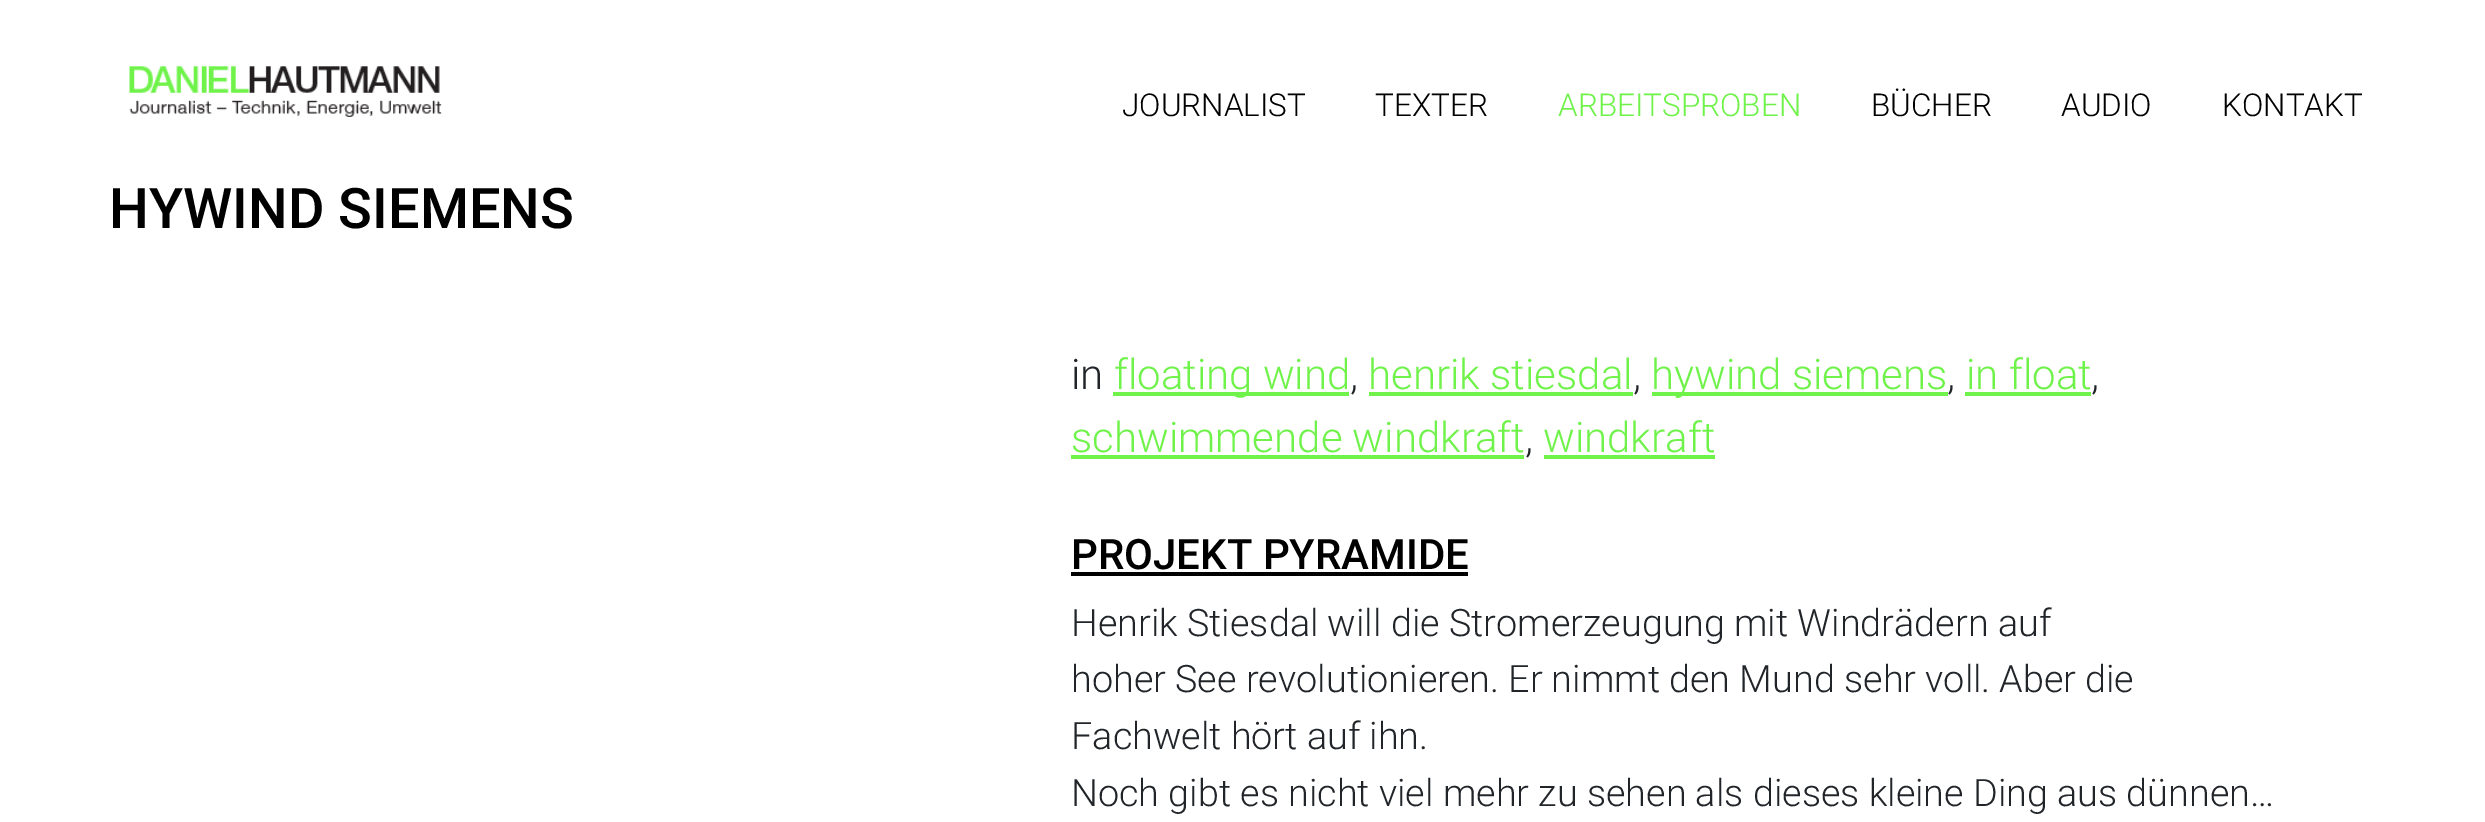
%!PS
<< /PageSize [2485 822] >> setpagedevice
/co { dup -16 bitshift 255 div exch dup -8 bitshift 255 and 255 div exch 255 and 255 div setrgbcolor } def
/fn { [ exch dup neg 0 0 3 -1 roll 0 0 ] selectfont } def
/tx { co fn moveto show } def
/bx { co rectfill } def
/im { 5 dict begin { /h /w /y /x /name } { exch def } forall
  gsave x y translate w h scale
  w h 8 [w 0 0 h 0 0] name (r) file false 3 colorimage grestore end } def
0 822 translate 1 -1 scale
4 setmiterlimit
0 0 2485 822 16#FFFFFF bx
(media/1.raw) 129 66 313 51 im
1113 392 236 4 16#6FF34A bx
1369 392 264 4 16#6FF34A bx
1652 392 296 4 16#6FF34A bx
1965 392 126 4 16#6FF34A bx
1071 455 453 4 16#6FF34A bx
1544 455 171 4 16#6FF34A bx
1071 572 397 4 16#000000 bx
(JOURNALIST) 1122 116 /Roboto-Light 31.5 16#000000 tx
(TEXTER) 1375 116 /Roboto-Light 31.5 16#000000 tx
(ARBEITSPROBEN) 1558 116 /Roboto-Light 31.5 16#6FF34A tx
(BÜCHER) 1871 116 /Roboto-Light 31.5 16#000000 tx
(AUDIO) 2061 116 /Roboto-Light 31.5 16#000000 tx
(KONTAKT) 2222 116 /Roboto-Light 31.5 16#000000 tx
(HYWIND SIEMENS) 109 228 /Roboto-Medium 56 16#000000 tx
(in) 1071 389 /Roboto-Light 42 16#212529 tx
(floating wind) 1114 389 /Roboto-Light 42 16#6FF34A tx
(henrik stiesdal) 1368 389 /Roboto-Light 42 16#6FF34A tx
(hywind siemens) 1651 389 /Roboto-Light 42 16#6FF34A tx
(in float) 1966 389 /Roboto-Light 42 16#6FF34A tx
(,) 1350 389 /Roboto-Light 42 16#212529 tx
(,) 1633 389 /Roboto-Light 42 16#212529 tx
(,) 1947 389 /Roboto-Light 42 16#212529 tx
(,) 2091 389 /Roboto-Light 42 16#212529 tx
(schwimmende windkraft) 1071 452 /Roboto-Light 42 16#6FF34A tx
(,) 1525 452 /Roboto-Light 42 16#212529 tx
(windkraft) 1543 452 /Roboto-Light 42 16#6FF34A tx
(PROJEKT PYRAMIDE) 1071 569 /Roboto-Medium 42 16#000000 tx
(Henrik Stiesdal will die Stromerzeugung) 1071 636 /Roboto-Light 37.8 16#212529 tx
(mit Windrädern auf) 1734 636 /Roboto-Light 37.8 16#212529 tx
(hoher See revolutionieren.) 1071 692 /Roboto-Light 37.8 16#212529 tx
(Er nimmt den Mund sehr voll.) 1508 692 /Roboto-Light 37.8 16#212529 tx
(Aber die) 1999 692 /Roboto-Light 37.8 16#212529 tx
(Fachwelt hört auf ihn.) 1071 749 /Roboto-Light 37.8 16#212529 tx
(Noch gibt es nicht viel mehr zu sehen als dieses kleine Ding aus dünnen…) 1071 806 /Roboto-Light 37.8 16#212529 tx
showpage
